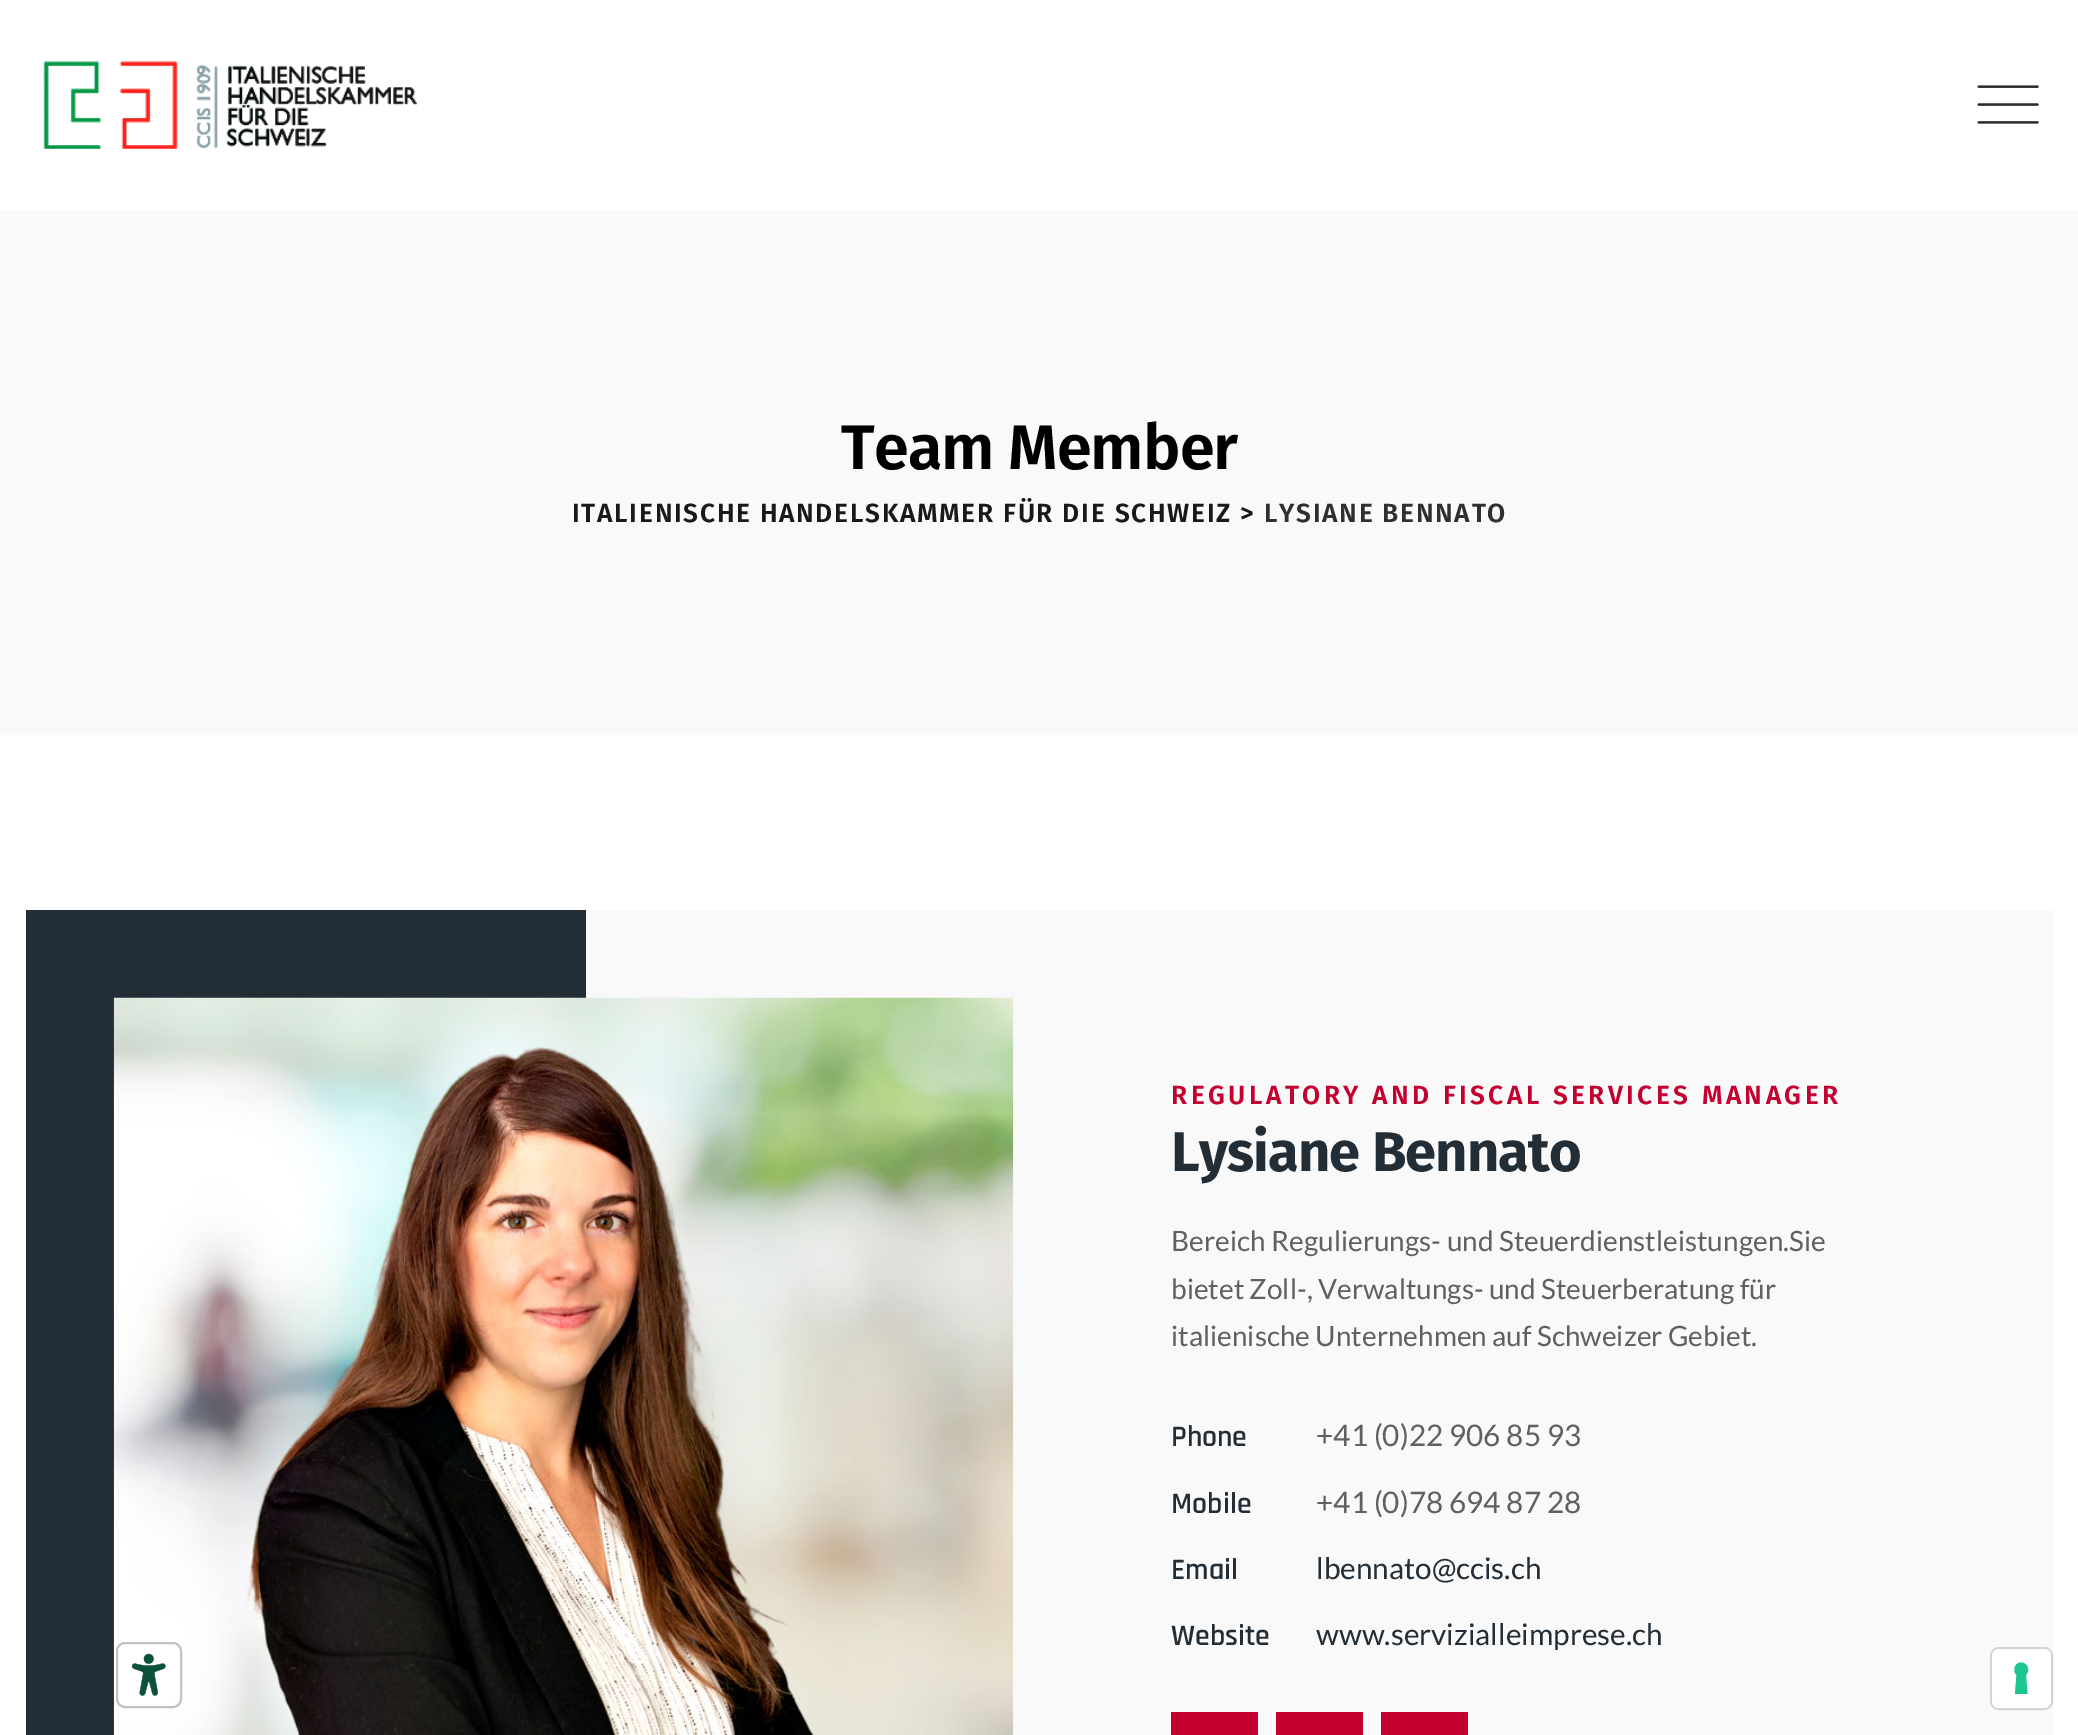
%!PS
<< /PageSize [2078 1735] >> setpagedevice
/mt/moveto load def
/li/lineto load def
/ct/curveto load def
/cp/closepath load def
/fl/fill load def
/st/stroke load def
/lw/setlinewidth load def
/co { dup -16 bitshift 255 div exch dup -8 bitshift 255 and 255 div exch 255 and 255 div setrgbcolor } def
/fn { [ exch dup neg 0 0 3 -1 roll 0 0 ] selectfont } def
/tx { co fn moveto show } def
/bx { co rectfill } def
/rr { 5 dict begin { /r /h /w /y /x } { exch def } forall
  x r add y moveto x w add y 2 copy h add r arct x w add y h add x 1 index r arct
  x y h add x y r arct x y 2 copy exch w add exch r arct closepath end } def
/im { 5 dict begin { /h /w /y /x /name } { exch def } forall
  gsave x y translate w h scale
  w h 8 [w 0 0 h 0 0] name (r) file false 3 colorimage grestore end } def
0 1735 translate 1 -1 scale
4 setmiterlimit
0 0 2078 1735 16#FFFFFF bx
(media/1.raw) 43 61 374 88 im
(media/2.raw) 1977 85 62 39 im
0 210 2078 525 16#F9F9F9 bx
586 910 1467 825 16#F9F9F9 bx
26 910 560 825 16#222D35 bx
(media/3.raw) 113 997 901 738 im
1171 1712 87 23 16#C3002F bx
1276 1712 87 23 16#C3002F bx
1381 1712 87 23 16#C3002F bx
(media/4.raw) 131 1653 35 43 im
16#C2C2C2 co
2 lw
117 1643 64 64 8 rr st
16#D4D4D4 co
1991 1648 61 61 8 rr st
16#FFFFFF co
1992 1649 59 59 7 rr fl
16#1CC691 co
2021 1662.5 mt 2027.5 1662.5 2030.5 1670.5 2026 1675 ct 2027.5 1694 li 2015 1694 li 2016.5 1675 li 2012 1670.5 2015 1662.5 2021 1662.5 ct cp eofill
/FiraSans-SemiBold 63 fn
16#000000 co
841 469 mt -.9 0 (Team Member) ashow
/FiraSans-SemiBold 26.25 fn
16#191919 co
572 522 mt 1.75 0 (ITALIENISCHE HANDELSKAMMER FÜR DIE SCHWEIZ >) ashow
16#2F2F2F co
1264 522 mt 1.75 0 (LYSIANE BENNATO) ashow
16#C3002F co
1171 1104 mt 3.5 0 (REGULATORY AND FISCAL SERVICES MANAGER) ashow
/FiraSans-Bold 56 fn
16#222D35 co
1171 1171 mt -.9 0 (Lysiane Bennato) ashow
(Bereich Regulierungs- und Steuerdienstleistungen.Sie) 1171 1251 /Lato-Regular 28 16#606060 tx
(bietet Zoll-, Verwaltungs- und Steuerberatung für) 1171 1299 /Lato-Regular 28 16#606060 tx
(italienische Unternehmen auf Schweizer Gebiet.) 1171 1346 /Lato-Regular 28 16#606060 tx
(Phone) 1171 1446 /Rajdhani-SemiBold 29.75 16#222D35 tx
(+41 \(0\)22 906 85 93) 1316 1446 /Lato-Regular 29.75 16#606060 tx
(Mobile) 1171 1513 /Rajdhani-SemiBold 29.75 16#222D35 tx
(+41 \(0\)78 694 87 28) 1316 1513 /Lato-Regular 29.75 16#606060 tx
(Email) 1171 1579 /Rajdhani-SemiBold 29.75 16#222D35 tx
(lbennato@ccis.ch) 1316 1579 /Lato-Regular 29.75 16#222D35 tx
(Website) 1171 1645 /Rajdhani-SemiBold 29.75 16#222D35 tx
(www.servizialleimprese.ch) 1316 1645 /Lato-Regular 29.75 16#222D35 tx
showpage
